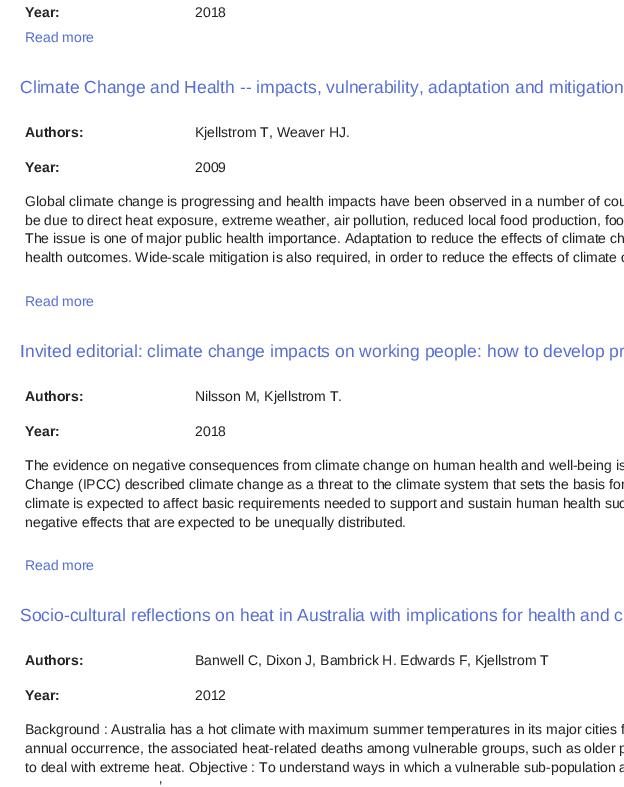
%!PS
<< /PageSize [624 787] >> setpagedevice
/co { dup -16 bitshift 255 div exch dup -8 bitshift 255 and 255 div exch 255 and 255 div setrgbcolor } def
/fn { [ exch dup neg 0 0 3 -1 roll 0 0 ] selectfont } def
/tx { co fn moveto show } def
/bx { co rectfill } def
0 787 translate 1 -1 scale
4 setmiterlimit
0 0 624 787 16#FFFFFF bx
(Year:) 25 17 /LiberationSans-Bold 14 16#222222 tx
(2018) 195 17 /LiberationSans-Regular 14 16#222222 tx
(Read more) 25 42 /LiberationSans-Regular 14 16#556ED6 tx
(Climate Change and Health -- impacts, vulnerability, adaptation and mitigation) 20 93 /LiberationSans-Regular 17.5 16#556ED6 tx
(Authors:) 25 137 /LiberationSans-Bold 14 16#222222 tx
(Kjellstrom T, Weaver HJ.) 195 137 /LiberationSans-Regular 14 16#222222 tx
(Year:) 25 172 /LiberationSans-Bold 14 16#222222 tx
(2009) 195 172 /LiberationSans-Regular 14 16#222222 tx
(Global climate change is progressing and health impacts have been observed in a number of cou) 25 206 /LiberationSans-Regular 14 16#222222 tx
(be due to direct heat exposure, extreme weather, air pollution, reduced local food production, foo) 25 225 /LiberationSans-Regular 14 16#222222 tx
(The issue is one of major public health importance. Adaptation to reduce the effects of climate ch) 25 243 /LiberationSans-Regular 14 16#222222 tx
(health outcomes. Wide-scale mitigation is also required, in order to reduce the effects of climate c) 25 262 /LiberationSans-Regular 14 16#222222 tx
(Read more) 25 306 /LiberationSans-Regular 14 16#556ED6 tx
(Invited editorial: climate change impacts on working people: how to develop pr) 20 357 /LiberationSans-Regular 17.5 16#556ED6 tx
(Authors:) 25 401 /LiberationSans-Bold 14 16#222222 tx
(Nilsson M, Kjellstrom T.) 195 401 /LiberationSans-Regular 14 16#222222 tx
(Year:) 25 436 /LiberationSans-Bold 14 16#222222 tx
(2018) 195 436 /LiberationSans-Regular 14 16#222222 tx
(The evidence on negative consequences from climate change on human health and well-being is) 25 470 /LiberationSans-Regular 14 16#222222 tx
(Change \(IPCC\) described climate change as a threat to the climate system that sets the basis for) 25 489 /LiberationSans-Regular 14 16#222222 tx
(climate is expected to affect basic requirements needed to support and sustain human health suc) 25 508 /LiberationSans-Regular 14 16#222222 tx
(negative effects that are expected to be unequally distributed.) 25 527 /LiberationSans-Regular 14 16#222222 tx
(Read more) 25 570 /LiberationSans-Regular 14 16#556ED6 tx
(Socio-cultural reflections on heat in Australia with implications for health and c) 20 621 /LiberationSans-Regular 17.5 16#556ED6 tx
(Authors:) 25 665 /LiberationSans-Bold 14 16#222222 tx
(Banwell C, Dixon J, Bambrick H. Edwards F, Kjellstrom T) 195 665 /LiberationSans-Regular 14 16#222222 tx
(Year:) 25 700 /LiberationSans-Bold 14 16#222222 tx
(2012) 195 700 /LiberationSans-Regular 14 16#222222 tx
(Background : Australia has a hot climate with maximum summer temperatures in its major cities f) 25 734 /LiberationSans-Regular 14 16#222222 tx
(annual occurrence, the associated heat-related deaths among vulnerable groups, such as older p) 25 753 /LiberationSans-Regular 14 16#222222 tx
(to deal with extreme heat. Objective : To understand ways in which a vulnerable sub-population a) 25 772 /LiberationSans-Regular 14 16#222222 tx
(’) 159 791 /LiberationSans-Regular 14 16#222222 tx
showpage
